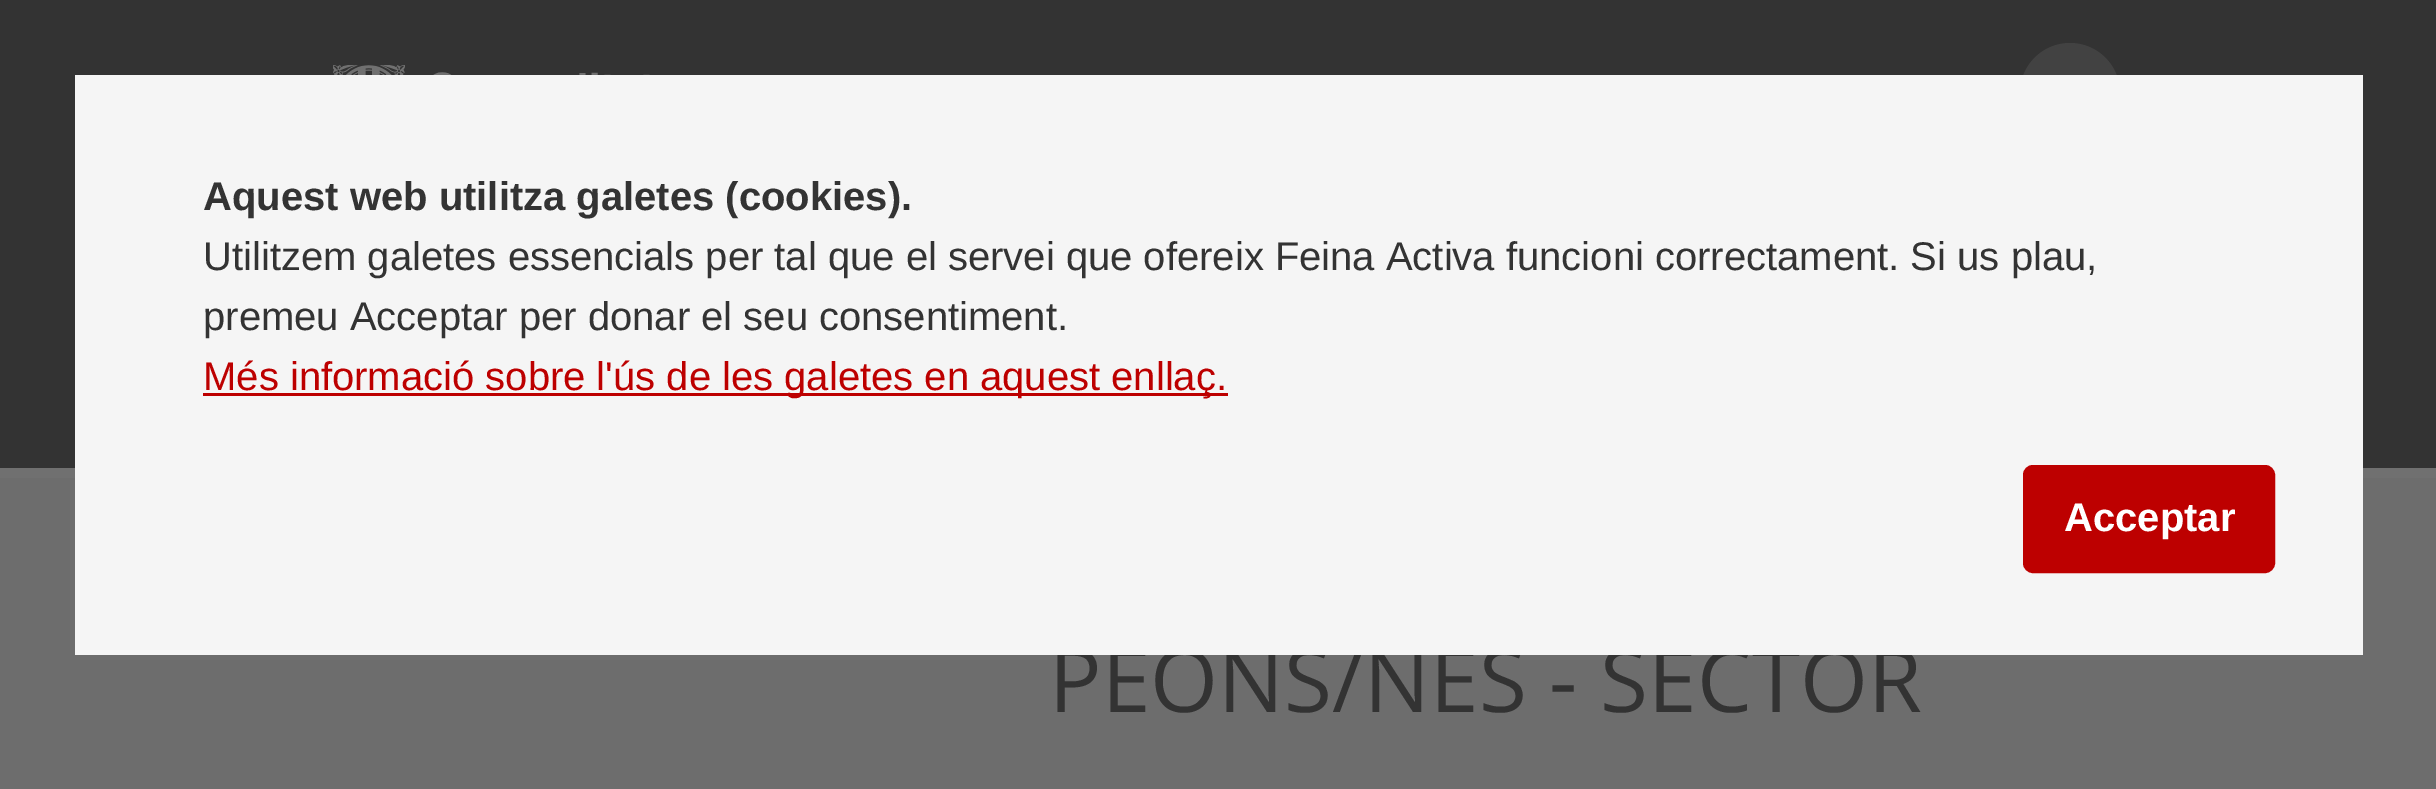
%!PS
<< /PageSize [2436 789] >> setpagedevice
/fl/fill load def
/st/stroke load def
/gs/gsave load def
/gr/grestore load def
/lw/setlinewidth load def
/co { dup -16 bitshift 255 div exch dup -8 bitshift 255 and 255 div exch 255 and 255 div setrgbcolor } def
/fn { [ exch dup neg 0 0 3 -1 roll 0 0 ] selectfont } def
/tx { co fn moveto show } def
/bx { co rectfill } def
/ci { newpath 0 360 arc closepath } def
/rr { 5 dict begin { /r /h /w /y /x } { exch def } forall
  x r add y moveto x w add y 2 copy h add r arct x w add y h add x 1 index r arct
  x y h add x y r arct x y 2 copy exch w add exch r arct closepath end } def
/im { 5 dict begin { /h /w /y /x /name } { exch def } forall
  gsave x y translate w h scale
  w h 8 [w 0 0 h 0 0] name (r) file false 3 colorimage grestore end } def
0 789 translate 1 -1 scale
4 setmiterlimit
0 0 2436 789 16#333333 bx
(media/1.raw) 333 65 317 10 im
16#424242 co
2070 93 50 ci fl
0 478 2436 311 16#6D6D6D bx
0 468 2436 10 16#707070 bx
(PEONS/NES - SECTOR) 1049 712 /OpenSans-Regular 87.5 16#333333 tx
75 75 2288 580 16#F5F5F5 bx
16#BD0000 co
2024.5 466.5 249 105 8.5 rr gs fl gr
3 lw
st
(Acceptar) 2064 531 /LiberationSans-Bold 40 16#FFFFFF tx
203 393 1025 3 16#BD0000 bx
(Més informació sobre l'ús de les galetes en aquest enllaç.) 203 390 /LiberationSans-Regular 40 16#BD0000 tx
(premeu Acceptar per donar el seu consentiment.) 203 330 /LiberationSans-Regular 40 16#333333 tx
(Utilitzem galetes essencials per tal que el servei que ofereix Feina Activa funcioni correctament. Si us plau,) 203 270 /LiberationSans-Regular 40 16#333333 tx
(Aquest web utilitza galetes \(cookies\).) 203 210 /LiberationSans-Bold 40 16#333333 tx
showpage
